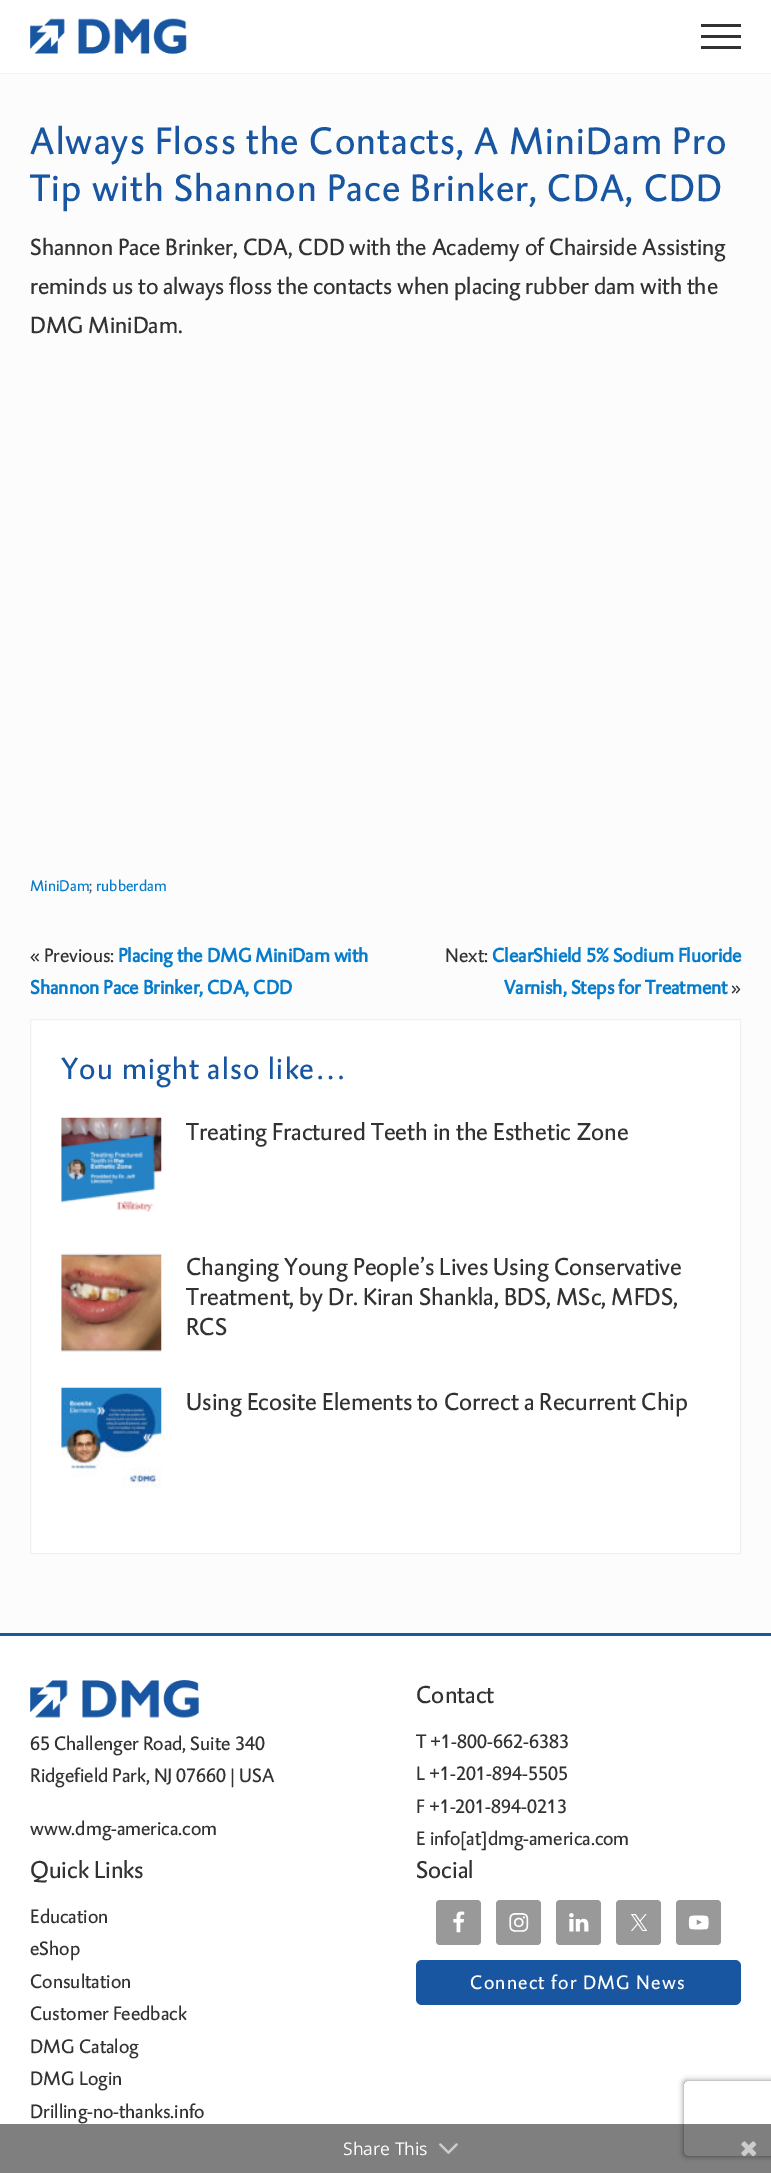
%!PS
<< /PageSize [771 2173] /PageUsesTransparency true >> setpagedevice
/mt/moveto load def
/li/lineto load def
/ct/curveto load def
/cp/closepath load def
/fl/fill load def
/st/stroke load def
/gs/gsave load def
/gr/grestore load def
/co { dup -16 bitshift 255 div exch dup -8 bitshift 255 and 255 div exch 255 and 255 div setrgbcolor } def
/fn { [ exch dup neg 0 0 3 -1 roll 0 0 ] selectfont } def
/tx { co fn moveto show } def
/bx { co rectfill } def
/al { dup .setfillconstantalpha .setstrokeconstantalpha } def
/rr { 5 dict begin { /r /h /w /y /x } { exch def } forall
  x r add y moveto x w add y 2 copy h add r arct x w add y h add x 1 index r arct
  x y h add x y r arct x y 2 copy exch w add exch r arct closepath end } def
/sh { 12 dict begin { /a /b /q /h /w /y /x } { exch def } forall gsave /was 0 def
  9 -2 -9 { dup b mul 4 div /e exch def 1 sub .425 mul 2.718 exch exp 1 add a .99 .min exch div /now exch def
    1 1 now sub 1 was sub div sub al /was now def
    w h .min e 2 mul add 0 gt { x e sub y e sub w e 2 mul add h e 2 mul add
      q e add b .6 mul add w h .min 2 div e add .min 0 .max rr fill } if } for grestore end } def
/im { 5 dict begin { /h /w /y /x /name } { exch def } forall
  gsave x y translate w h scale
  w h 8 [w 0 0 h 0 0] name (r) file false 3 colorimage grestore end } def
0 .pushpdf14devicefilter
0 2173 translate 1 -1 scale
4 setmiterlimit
0 0 771 2173 16#FCFCFC bx
0 0 771 73 16#FFFFFF bx
0 73 771 1 16#F2F2F2 bx
(media/1.raw) 30 18 157 36 im
701 35 40 3 16#323232 bx
701 24 40 3 16#323232 bx
701 46 40 3 16#323232 bx
16#FFFFFF co
30.5 1019.5 mt 740.5 1019.5 li 740.5 1553.5 li 30.5 1553.5 li cp gs fl gr
16#F0F0F0 co
st
(media/2.raw) 61 1117 101 95 im
(media/3.raw) 61 1253 101 99 im
(media/4.raw) 61 1387 101 101 im
0 1636 771 537 16#FFFFFF bx
0 1633 771 3 16#1856A2 bx
(media/5.raw) 30 1680 169 38 im
16#999999 co
436 1900 45 45 4 rr fl
(media/6.raw) 453 1911 12 22 im
496 1900 45 45 4 rr fl
(media/7.raw) 509 1913 20 19 im
556 1900 45 45 4 rr fl
(media/8.raw) 569 1913 20 19 im
616 1900 45 45 4 rr fl
(media/9.raw) 631 1914 17 17 im
676 1900 45 45 4 rr fl
(media/10.raw) 688 1915 21 15 im
16#1856A2 co
416 1960 325 45 6 rr fl
gs
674 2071 mt 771 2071 li 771 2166 li 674 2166 li cp 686.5 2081 mt 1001.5 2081 li 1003 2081 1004 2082 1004 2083.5 ct 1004 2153.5 li 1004 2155 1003 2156 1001.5 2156 ct 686.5 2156 li 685 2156 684 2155 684 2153.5 ct 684 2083.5 li 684 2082 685 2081 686.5 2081 ct cp eoclip newpath
16#808080 co
684 2081 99 75 2.5 3 1 sh
gr
0.5 al
0 2124 771 49 16#000000 bx
1 al
(media/11.raw) 439 2143 19 11 im
(media/12.raw) 741 2141 16 16 im
/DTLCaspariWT-Regular 39.1 fn
16#1856A2 co
30 154 mt 1.25 0 (Always Floss the Contacts, A MiniDam Pro) ashow
30 201 mt 1.25 0 (Tip with Shannon Pace Brinker, CDA, CDD) ashow
(Shannon Pace Brinker, CDA, CDD with the Academy of Chairside Assisting) 30 255 /DTLCaspariWT-Regular 24 16#323232 tx
(reminds us to always floss the contacts when placing rubber dam with the) 30 294 /DTLCaspariWT-Regular 24 16#323232 tx
(DMG MiniDam.) 30 333 /DTLCaspariWT-Regular 24 16#323232 tx
(MiniDam) 30 891 /DTLCaspariWT-Regular 16 16#067CCC tx
(;) 89 891 /DTLCaspariWT-Regular 16 16#555555 tx
(rubberdam) 96 891 /DTLCaspariWT-Regular 16 16#067CCC tx
(« Previous:) 30 962 /DTLCaspariWT-Regular 20 16#323232 tx
(Placing the DMG MiniDam with) 118 962 /DTLCaspariWT-Bold 20 16#067CCC tx
(Shannon Pace Brinker, CDA, CDD) 30 994 /DTLCaspariWT-Bold 20 16#067CCC tx
(Next:) 445 962 /DTLCaspariWT-Regular 20 16#323232 tx
(ClearShield 5% Sodium Fluoride) 492 962 /DTLCaspariWT-Bold 20 16#067CCC tx
(Varnish, Steps for Treatment) 504 994 /DTLCaspariWT-Bold 20 16#067CCC tx
(») 731 994 /DTLCaspariWT-Regular 20 16#323232 tx
/DTLCaspariWT-Regular 31.25 fn
16#1856A2 co
61 1079 mt 1.25 0 (You might also like…) ashow
(Treating Fractured Teeth in the Esthetic Zone) 186 1140 /DTLCaspariWT-Regular 25 16#323232 tx
(Changing Young People’s Lives Using Conservative) 186 1275 /DTLCaspariWT-Regular 25 16#323232 tx
(Treatment, by Dr. Kiran Shankla, BDS, MSc, MFDS,) 186 1305 /DTLCaspariWT-Regular 25 16#323232 tx
(RCS) 186 1335 /DTLCaspariWT-Regular 25 16#323232 tx
(Using Ecosite Elements to Correct a Recurrent Chip) 186 1410 /DTLCaspariWT-Regular 25 16#323232 tx
(65 Challenger Road, Suite 340) 30 1750 /DTLCaspariWT-Regular 20 16#323232 tx
(Ridgefield Park, NJ 07660 | USA) 30 1782 /DTLCaspariWT-Regular 20 16#323232 tx
(www.dmg-america.com) 30 1835 /DTLCaspariWT-Regular 20 16#323232 tx
(Contact) 416 1703 /DTLCaspariWT-Regular 25 16#323232 tx
(T +1-800-662-6383) 416 1748 /DTLCaspariWT-Regular 20 16#323232 tx
(L +1-201-894-5505) 416 1780 /DTLCaspariWT-Regular 20 16#323232 tx
(F +1-201-894-0213) 416 1813 /DTLCaspariWT-Regular 20 16#323232 tx
(E info[at]dmg-america.com) 416 1845 /DTLCaspariWT-Regular 20 16#323232 tx
(Quick Links) 30 1878 /DTLCaspariWT-Regular 25 16#323232 tx
(Education) 30 1923 /DTLCaspariWT-Regular 20 16#323232 tx
(eShop) 30 1955 /DTLCaspariWT-Regular 20 16#323232 tx
(Consultation) 30 1988 /DTLCaspariWT-Regular 20 16#323232 tx
(Customer Feedback) 30 2020 /DTLCaspariWT-Regular 20 16#323232 tx
(DMG Catalog) 30 2053 /DTLCaspariWT-Regular 20 16#323232 tx
(DMG Login) 30 2085 /DTLCaspariWT-Regular 20 16#323232 tx
(Drilling-no-thanks.info) 30 2118 /DTLCaspariWT-Regular 20 16#323232 tx
(Social) 416 1878 /DTLCaspariWT-Regular 25 16#323232 tx
/DTLCaspariWT-Regular 20 fn
16#FFFFFF co
470 1989 mt 1.25 0 (Connect for DMG News) ashow
(Share This) 343 2155 /OpenSans-Regular 17.5 16#FFFFFF tx
.poppdf14devicefilter showpage
